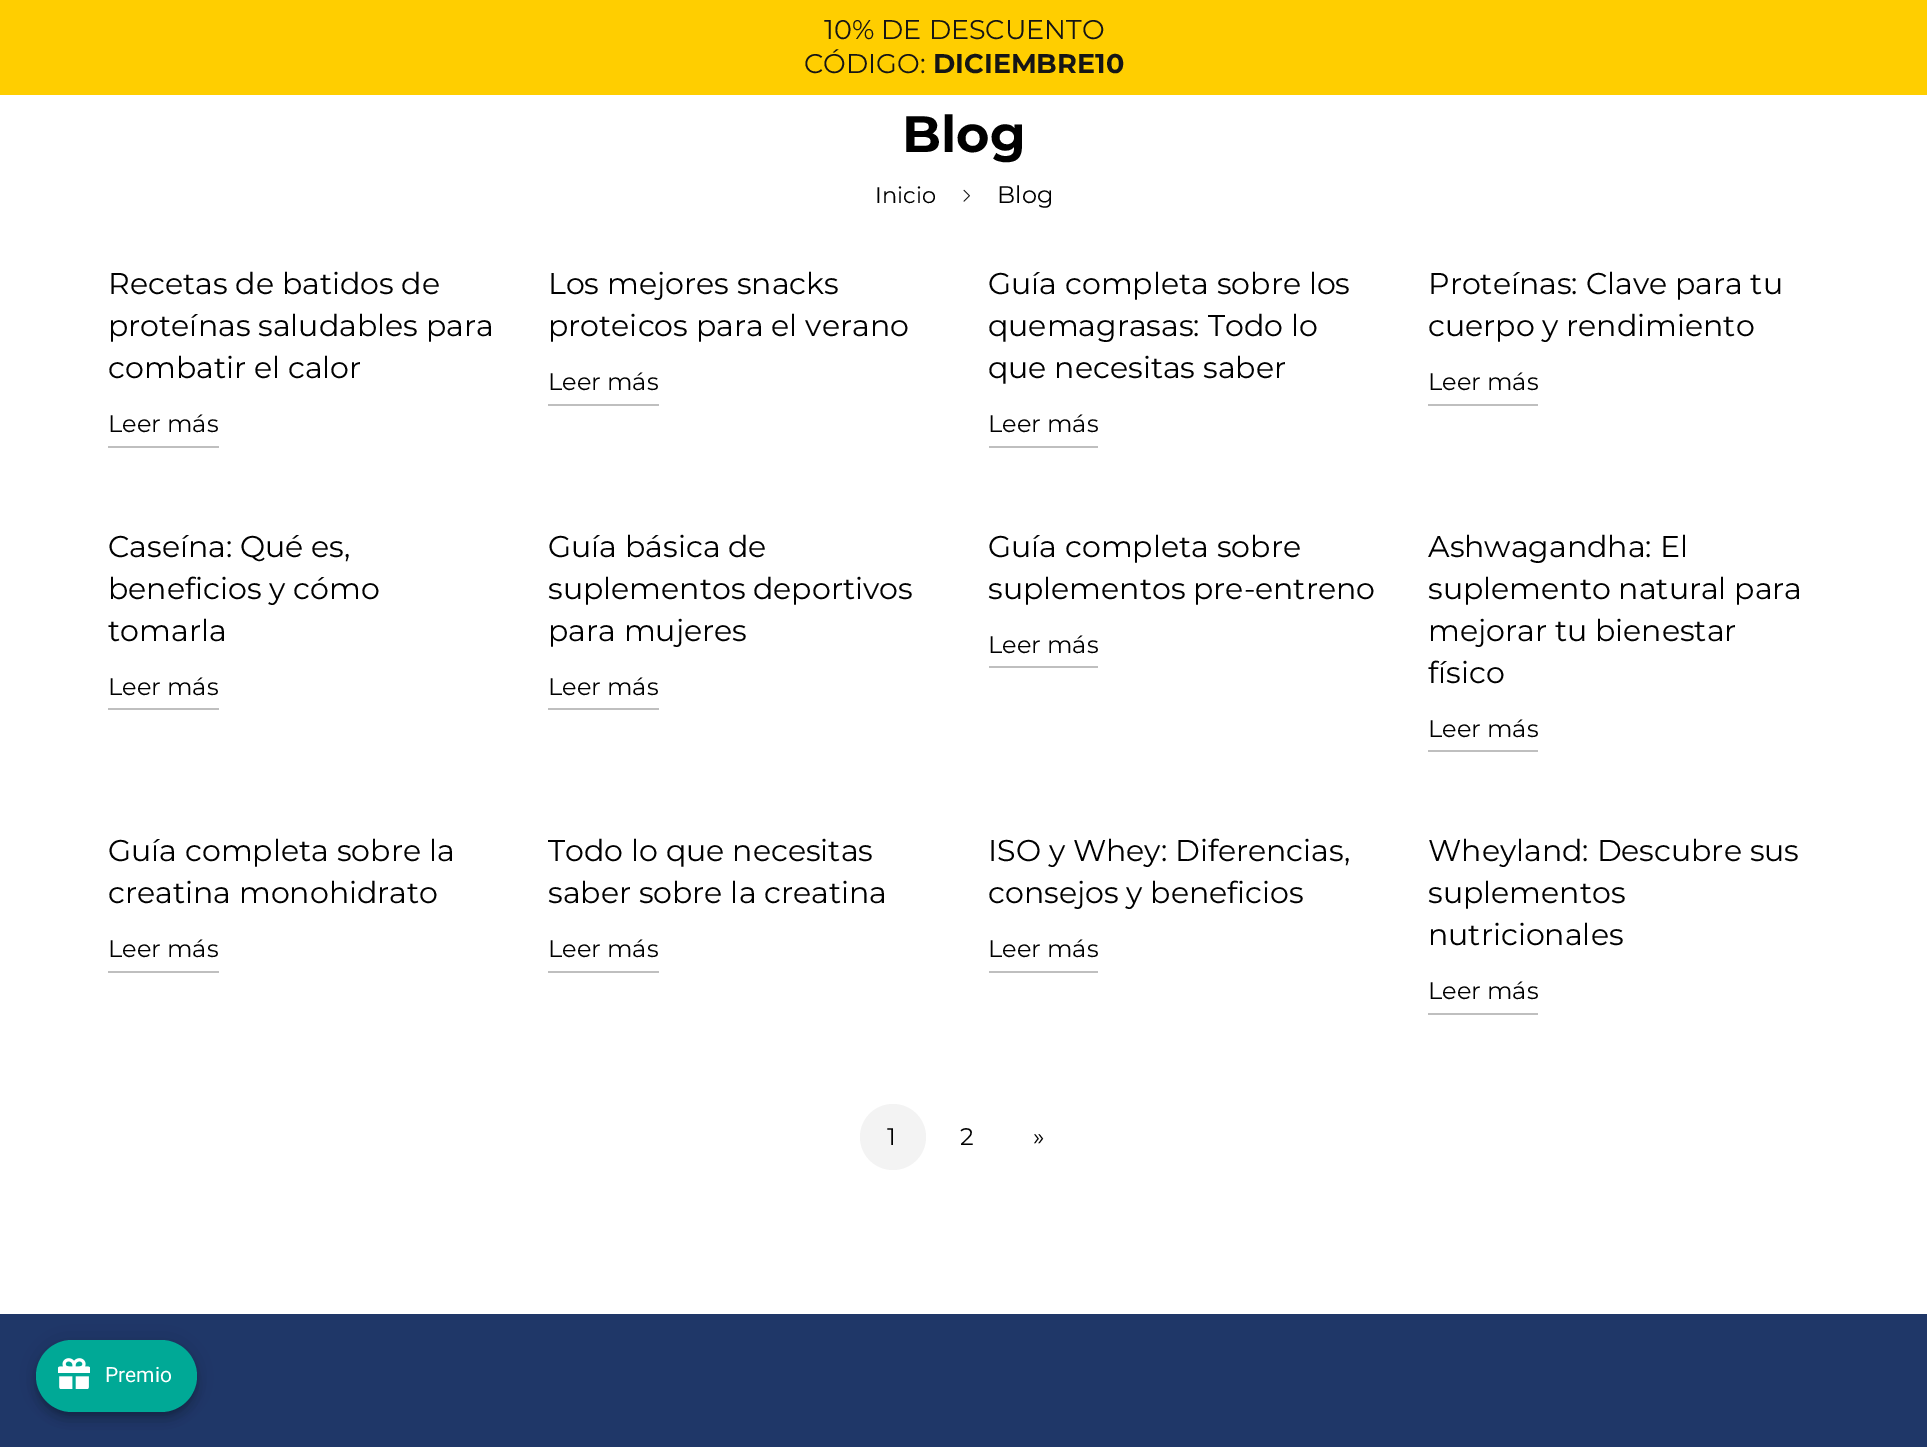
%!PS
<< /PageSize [1927 1447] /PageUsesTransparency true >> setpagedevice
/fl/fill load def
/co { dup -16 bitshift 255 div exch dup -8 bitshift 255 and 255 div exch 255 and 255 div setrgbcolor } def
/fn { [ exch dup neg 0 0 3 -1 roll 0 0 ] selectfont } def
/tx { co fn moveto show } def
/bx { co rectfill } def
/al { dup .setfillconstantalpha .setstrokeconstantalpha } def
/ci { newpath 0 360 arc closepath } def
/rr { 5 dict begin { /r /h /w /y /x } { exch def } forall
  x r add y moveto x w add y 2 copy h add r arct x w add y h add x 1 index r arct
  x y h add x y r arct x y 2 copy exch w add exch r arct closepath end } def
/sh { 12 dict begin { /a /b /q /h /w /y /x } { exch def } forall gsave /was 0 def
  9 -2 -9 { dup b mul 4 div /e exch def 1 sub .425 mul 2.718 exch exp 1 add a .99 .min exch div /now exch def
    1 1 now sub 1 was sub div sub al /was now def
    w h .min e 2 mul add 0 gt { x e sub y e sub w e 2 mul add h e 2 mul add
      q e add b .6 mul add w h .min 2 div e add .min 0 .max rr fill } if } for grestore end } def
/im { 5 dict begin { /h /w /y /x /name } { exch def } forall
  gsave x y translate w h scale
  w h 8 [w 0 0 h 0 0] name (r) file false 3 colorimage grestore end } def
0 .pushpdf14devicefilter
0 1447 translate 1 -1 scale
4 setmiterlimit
0 0 1927 1447 16#FFFFFF bx
0 0 1927 95 16#FFCE00 bx
(media/1.raw) 963 189 7 13 im
108 446 111 2 16#BFBFBF bx
548 404 111 2 16#BFBFBF bx
989 446 109 2 16#BFBFBF bx
1428 404 110 2 16#BFBFBF bx
108 708 111 2 16#BFBFBF bx
548 708 111 2 16#BFBFBF bx
989 666 109 2 16#BFBFBF bx
1428 750 110 2 16#BFBFBF bx
108 971 111 2 16#BFBFBF bx
548 971 111 2 16#BFBFBF bx
989 971 109 2 16#BFBFBF bx
1428 1013 110 2 16#BFBFBF bx
16#F3F3F3 co
893 1137 33 ci fl
0 1314 1927 133 16#1F3768 bx
16#000000 co
36 1341 161 72 36 13.5 .12 sh
36 1349 161 72 36 7.5 .14 sh
38 1346 157 69 34.5 4 .2 sh
16#00A996 co
36 1340 161 72 36 rr fl
(media/2.raw) 58 1358 32 31 im
(10% DE DESCUENTO) 824 39 /Montserrat-Regular 27 16#151515 tx
(CÓDIGO:) 804 73 /Montserrat-Regular 27 16#151515 tx
(DICIEMBRE10) 933 73 /Montserrat-Bold 27 16#151515 tx
(Blog) 902 152 /Montserrat-Bold 51 16#000000 tx
(Inicio) 875 203 /Montserrat-Regular 22.5 16#000000 tx
(Blog) 997 203 /Montserrat-Regular 24 16#000000 tx
(Recetas de batidos de) 108 294 /Montserrat-Regular 30 16#000000 tx
(proteínas saludables para) 108 336 /Montserrat-Regular 30 16#000000 tx
(combatir el calor) 108 378 /Montserrat-Regular 30 16#000000 tx
(Leer más) 108 432 /Montserrat-Regular 24 16#000000 tx
(Los mejores snacks) 548 294 /Montserrat-Regular 30 16#000000 tx
(proteicos para el verano) 548 336 /Montserrat-Regular 30 16#000000 tx
(Leer más) 548 390 /Montserrat-Regular 24 16#000000 tx
(Guía completa sobre los) 988 294 /Montserrat-Regular 30 16#000000 tx
(quemagrasas: Todo lo) 988 336 /Montserrat-Regular 30 16#000000 tx
(que necesitas saber) 988 378 /Montserrat-Regular 30 16#000000 tx
(Leer más) 988 432 /Montserrat-Regular 24 16#000000 tx
(Proteínas: Clave para tu) 1428 294 /Montserrat-Regular 30 16#000000 tx
(cuerpo y rendimiento) 1428 336 /Montserrat-Regular 30 16#000000 tx
(Leer más) 1428 390 /Montserrat-Regular 24 16#000000 tx
(Caseína: Qué es,) 108 557 /Montserrat-Regular 30 16#000000 tx
(beneficios y cómo) 108 599 /Montserrat-Regular 30 16#000000 tx
(tomarla) 108 641 /Montserrat-Regular 30 16#000000 tx
(Leer más) 108 695 /Montserrat-Regular 24 16#000000 tx
(Guía básica de) 548 557 /Montserrat-Regular 30 16#000000 tx
(suplementos deportivos) 548 599 /Montserrat-Regular 30 16#000000 tx
(para mujeres) 548 641 /Montserrat-Regular 30 16#000000 tx
(Leer más) 548 695 /Montserrat-Regular 24 16#000000 tx
(Guía completa sobre) 988 557 /Montserrat-Regular 30 16#000000 tx
(suplementos pre-entreno) 988 599 /Montserrat-Regular 30 16#000000 tx
(Leer más) 988 653 /Montserrat-Regular 24 16#000000 tx
(Ashwagandha: El) 1428 557 /Montserrat-Regular 30 16#000000 tx
(suplemento natural para) 1428 599 /Montserrat-Regular 30 16#000000 tx
(mejorar tu bienestar) 1428 641 /Montserrat-Regular 30 16#000000 tx
(físico) 1428 683 /Montserrat-Regular 30 16#000000 tx
(Leer más) 1428 737 /Montserrat-Regular 24 16#000000 tx
(Guía completa sobre la) 108 861 /Montserrat-Regular 30 16#000000 tx
(creatina monohidrato) 108 903 /Montserrat-Regular 30 16#000000 tx
(Leer más) 108 957 /Montserrat-Regular 24 16#000000 tx
(Todo lo que necesitas) 548 861 /Montserrat-Regular 30 16#000000 tx
(saber sobre la creatina) 548 903 /Montserrat-Regular 30 16#000000 tx
(Leer más) 548 957 /Montserrat-Regular 24 16#000000 tx
(ISO y Whey: Diferencias,) 988 861 /Montserrat-Regular 30 16#000000 tx
(consejos y beneficios) 988 903 /Montserrat-Regular 30 16#000000 tx
(Leer más) 988 957 /Montserrat-Regular 24 16#000000 tx
(Wheyland: Descubre sus) 1428 861 /Montserrat-Regular 30 16#000000 tx
(suplementos) 1428 903 /Montserrat-Regular 30 16#000000 tx
(nutricionales) 1428 945 /Montserrat-Regular 30 16#000000 tx
(Leer más) 1428 999 /Montserrat-Regular 24 16#000000 tx
(1) 887 1145 /Montserrat-Regular 24 16#000000 tx
(2) 960 1145 /Montserrat-Regular 24 16#000000 tx
(») 1033 1145 /Montserrat-Regular 24 16#000000 tx
(Premio) 105 1382 /Roboto-Regular 21 16#FFFFFF tx
.poppdf14devicefilter showpage
